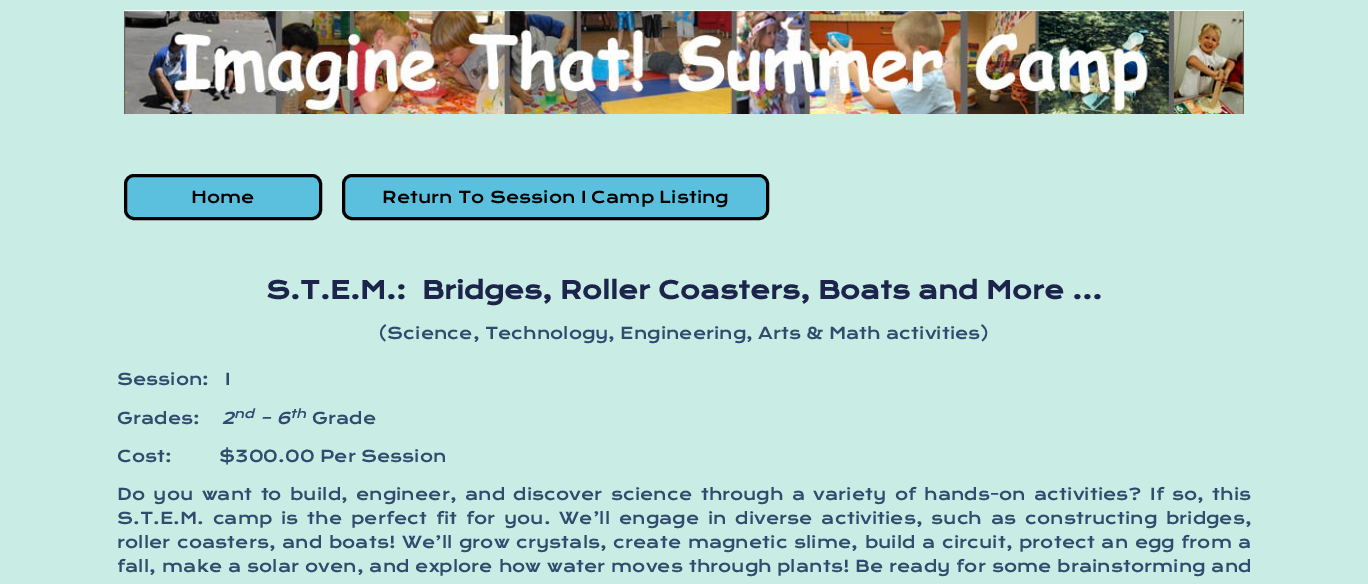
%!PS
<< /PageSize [1368 584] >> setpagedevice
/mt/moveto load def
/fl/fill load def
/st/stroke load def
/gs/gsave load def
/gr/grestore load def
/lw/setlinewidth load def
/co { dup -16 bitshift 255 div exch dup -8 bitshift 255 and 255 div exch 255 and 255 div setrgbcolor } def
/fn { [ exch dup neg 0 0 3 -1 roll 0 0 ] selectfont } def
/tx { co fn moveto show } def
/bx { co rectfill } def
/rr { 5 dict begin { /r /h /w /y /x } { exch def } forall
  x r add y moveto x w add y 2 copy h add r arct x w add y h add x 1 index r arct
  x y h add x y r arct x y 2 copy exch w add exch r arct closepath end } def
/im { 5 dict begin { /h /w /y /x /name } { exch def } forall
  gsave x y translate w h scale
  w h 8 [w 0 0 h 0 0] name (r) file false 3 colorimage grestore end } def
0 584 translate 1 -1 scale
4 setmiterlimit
0 0 1368 584 16#C9EDE5 bx
(media/1.raw) 124 10 1120 104 im
16#5BC0DE co
125.5 175.5 195 43 8.5 rr gs fl gr
16#000000 co
3 lw
st
16#5BC0DE co
343.5 175.5 424 43 8.5 rr gs fl gr
16#000000 co
st
(Home) 191 203 /KronaOne-Regular 16 16#000000 tx
(Return To Session I Camp Listing) 382 203 /KronaOne-Regular 16 16#000000 tx
(S.T.E.M.:  Bridges, Roller Coasters, Boats and More …) 266 299 /KronaOne-Bold 24 16#1C244B tx
(\(Science, Technology, Engineering, Arts & Math activities\)) 378 339 /KronaOne-Regular 16 16#324A6D tx
(Session:) 117 385 /KronaOne-Regular 16 16#324A6D tx
(I) 225 385 /KronaOne-Regular 16 16#324A6D tx
(Grades:) 117 424 /KronaOne-Regular 16 16#324A6D tx
(2) 221 424 /KronaOne-Italic 16 16#324A6D tx
(nd) 234 418 /KronaOne-Italic 12 16#324A6D tx
(– 6) 260 424 /KronaOne-Italic 16 16#324A6D tx
(th) 290 418 /KronaOne-Italic 12 16#324A6D tx
(Grade) 312 424 /KronaOne-Regular 16 16#324A6D tx
(Cost:         $300.00 Per Session) 117 462 /KronaOne-Regular 16 16#324A6D tx
117 500 mt 3.1 0 32 (Do you want to build, engineer, and discover science through a variety of hands-on activities? If so, this) widthshow
117 524 mt 3.5 0 32 (S.T.E.M. camp is the perfect fit for you. We’ll engage in diverse activities, such as) widthshow
1025 524 mt 3.5 0 32 (constructing bridges,) widthshow
117 548 mt 1.25 0 32 (roller coasters, and boats! We’ll grow crystals, create magnetic slime, build a circuit, protect an egg from) widthshow
(a) 1238 548 /KronaOne-Regular 16 16#324A6D tx
(fall,) 117 572 /KronaOne-Regular 16 16#324A6D tx
162 572 mt .6 0 32 (make a solar oven, and explore how water moves through plants! Be ready for some brainstorming and) widthshow
showpage
